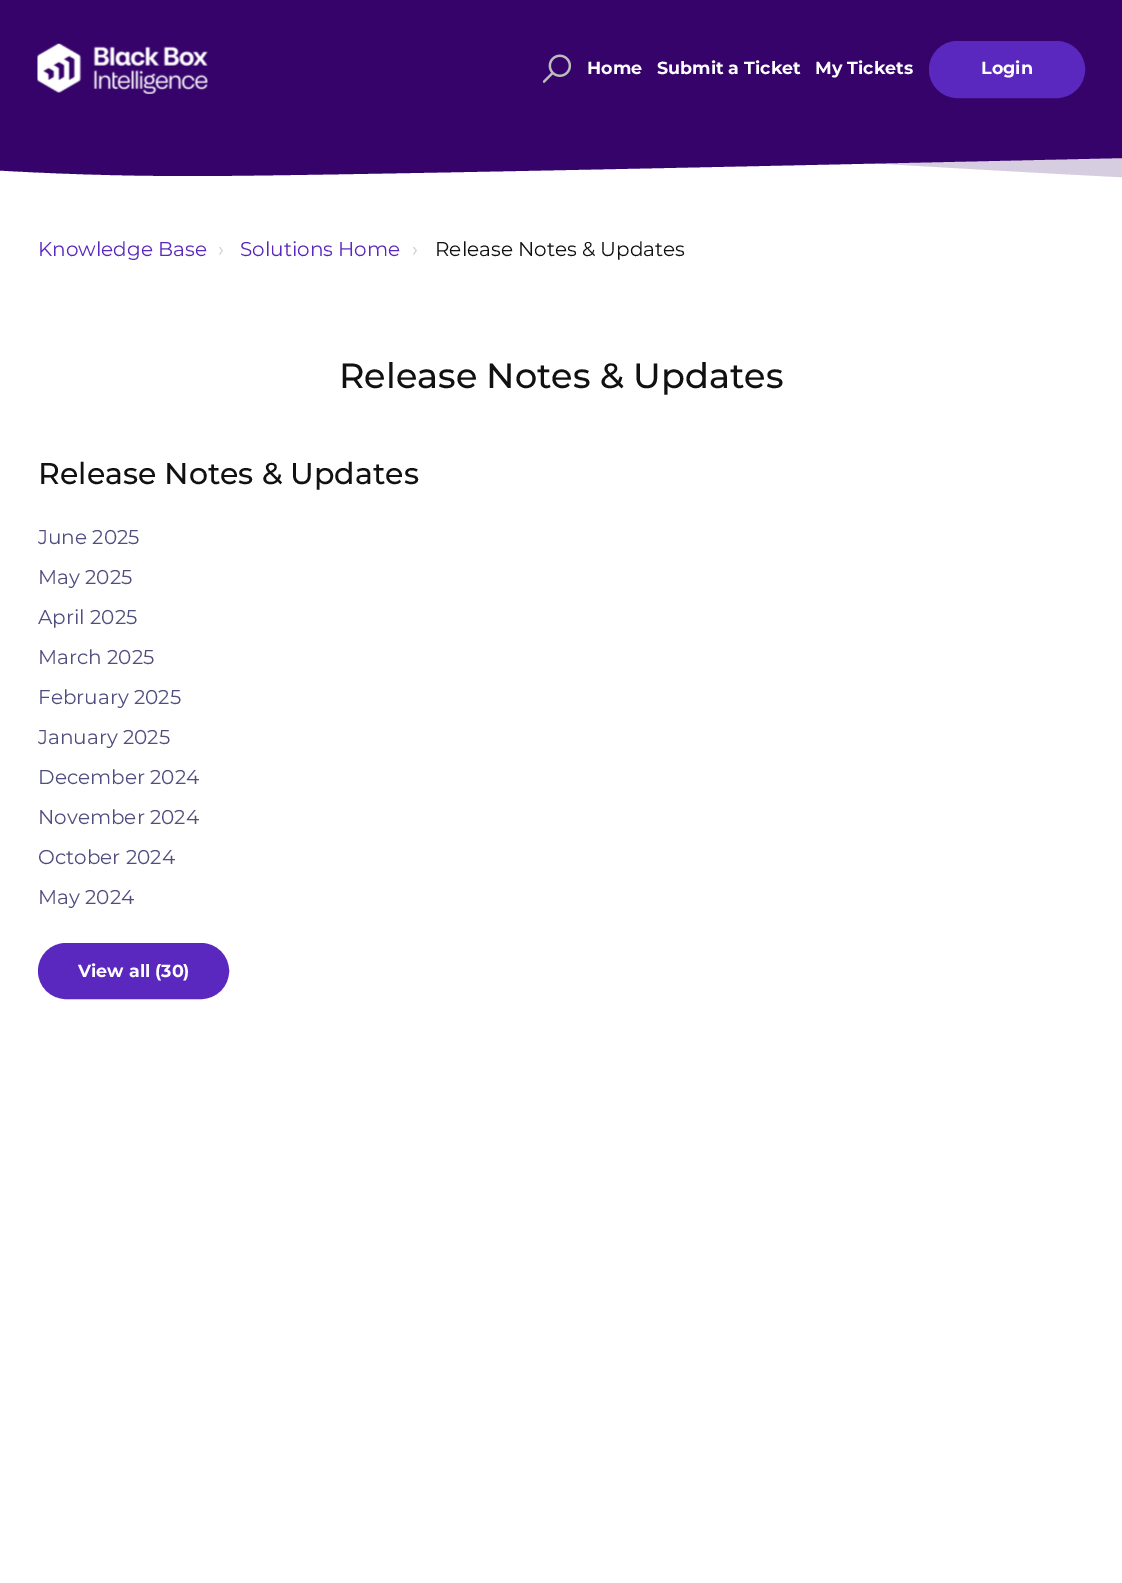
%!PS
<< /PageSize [1122 1583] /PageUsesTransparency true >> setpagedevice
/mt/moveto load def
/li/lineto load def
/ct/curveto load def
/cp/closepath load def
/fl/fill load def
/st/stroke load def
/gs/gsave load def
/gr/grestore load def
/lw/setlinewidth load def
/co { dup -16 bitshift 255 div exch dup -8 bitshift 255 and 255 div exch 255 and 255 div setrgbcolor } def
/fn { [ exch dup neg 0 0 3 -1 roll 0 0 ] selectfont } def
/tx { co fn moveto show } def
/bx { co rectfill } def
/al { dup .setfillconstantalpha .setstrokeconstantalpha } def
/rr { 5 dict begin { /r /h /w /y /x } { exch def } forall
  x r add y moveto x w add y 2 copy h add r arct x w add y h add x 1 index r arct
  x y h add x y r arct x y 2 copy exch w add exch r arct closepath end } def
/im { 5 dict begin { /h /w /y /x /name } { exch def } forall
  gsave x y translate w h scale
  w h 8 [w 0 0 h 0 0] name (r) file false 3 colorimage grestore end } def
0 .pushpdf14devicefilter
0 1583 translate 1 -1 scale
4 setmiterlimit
0 0 1122 1583 16#FFFFFF bx
0 0 1122 136 16#36036B bx
(media/1.raw) 37 43 171 51 im
(media/2.raw) 543 54 28 29 im
16#5A28BE co
930.5 42.5 153 54 27 rr gs fl gr
3 lw
st
16#36036B co
192 176 mt 416 176 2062 136 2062 136 ct -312 136 li -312 136 -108 176 192 176 ct cp fl
gs
0 136 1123 59 rectclip
0.2 al
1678 195 mt 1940 195 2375 100 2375 100 ct 0 100 li 0 100 1121 195 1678 195 ct cp fl
gr
16#5A28BE co
39.5 944.5 188 53 26.5 rr gs fl gr
st
(Home) 587 74 /Montserrat-Bold 17.5 16#FFFFFF tx
(Submit a Ticket) 657 74 /Montserrat-Bold 17.5 16#FFFFFF tx
(My Tickets) 815 74 /Montserrat-Bold 17.5 16#FFFFFF tx
(Login) 981 74 /Montserrat-Bold 17.5 16#FFFFFF tx
(Knowledge Base) 38 256 /Montserrat-Regular 20 16#5A28BE tx
(›) 218 256 /Montserrat-Regular 20 16#CCCCCC tx
(Solutions Home) 240 256 /Montserrat-Regular 20 16#5A28BE tx
(›) 412 256 /Montserrat-Regular 20 16#CCCCCC tx
(Release Notes & Updates) 435 256 /Montserrat-Regular 20 16#111111 tx
(Release Notes & Updates) 339 388 /Montserrat-Medium 35 16#111111 tx
(Release Notes & Updates) 38 484 /Montserrat-Medium 30 16#111111 tx
(June 2025) 38 544 /Montserrat-Regular 20 16#504D7F tx
(May 2025) 38 584 /Montserrat-Regular 20 16#504D7F tx
(April 2025) 38 624 /Montserrat-Regular 20 16#504D7F tx
(March 2025) 38 664 /Montserrat-Regular 20 16#504D7F tx
(February 2025) 38 704 /Montserrat-Regular 20 16#504D7F tx
(January 2025) 38 744 /Montserrat-Regular 20 16#504D7F tx
(December 2024) 38 784 /Montserrat-Regular 20 16#504D7F tx
(November 2024) 38 824 /Montserrat-Regular 20 16#504D7F tx
(October 2024) 38 864 /Montserrat-Regular 20 16#504D7F tx
(May 2024) 38 904 /Montserrat-Regular 20 16#504D7F tx
(View all \(30\)) 78 977 /Montserrat-Bold 17.5 16#FFFFFF tx
.poppdf14devicefilter showpage
